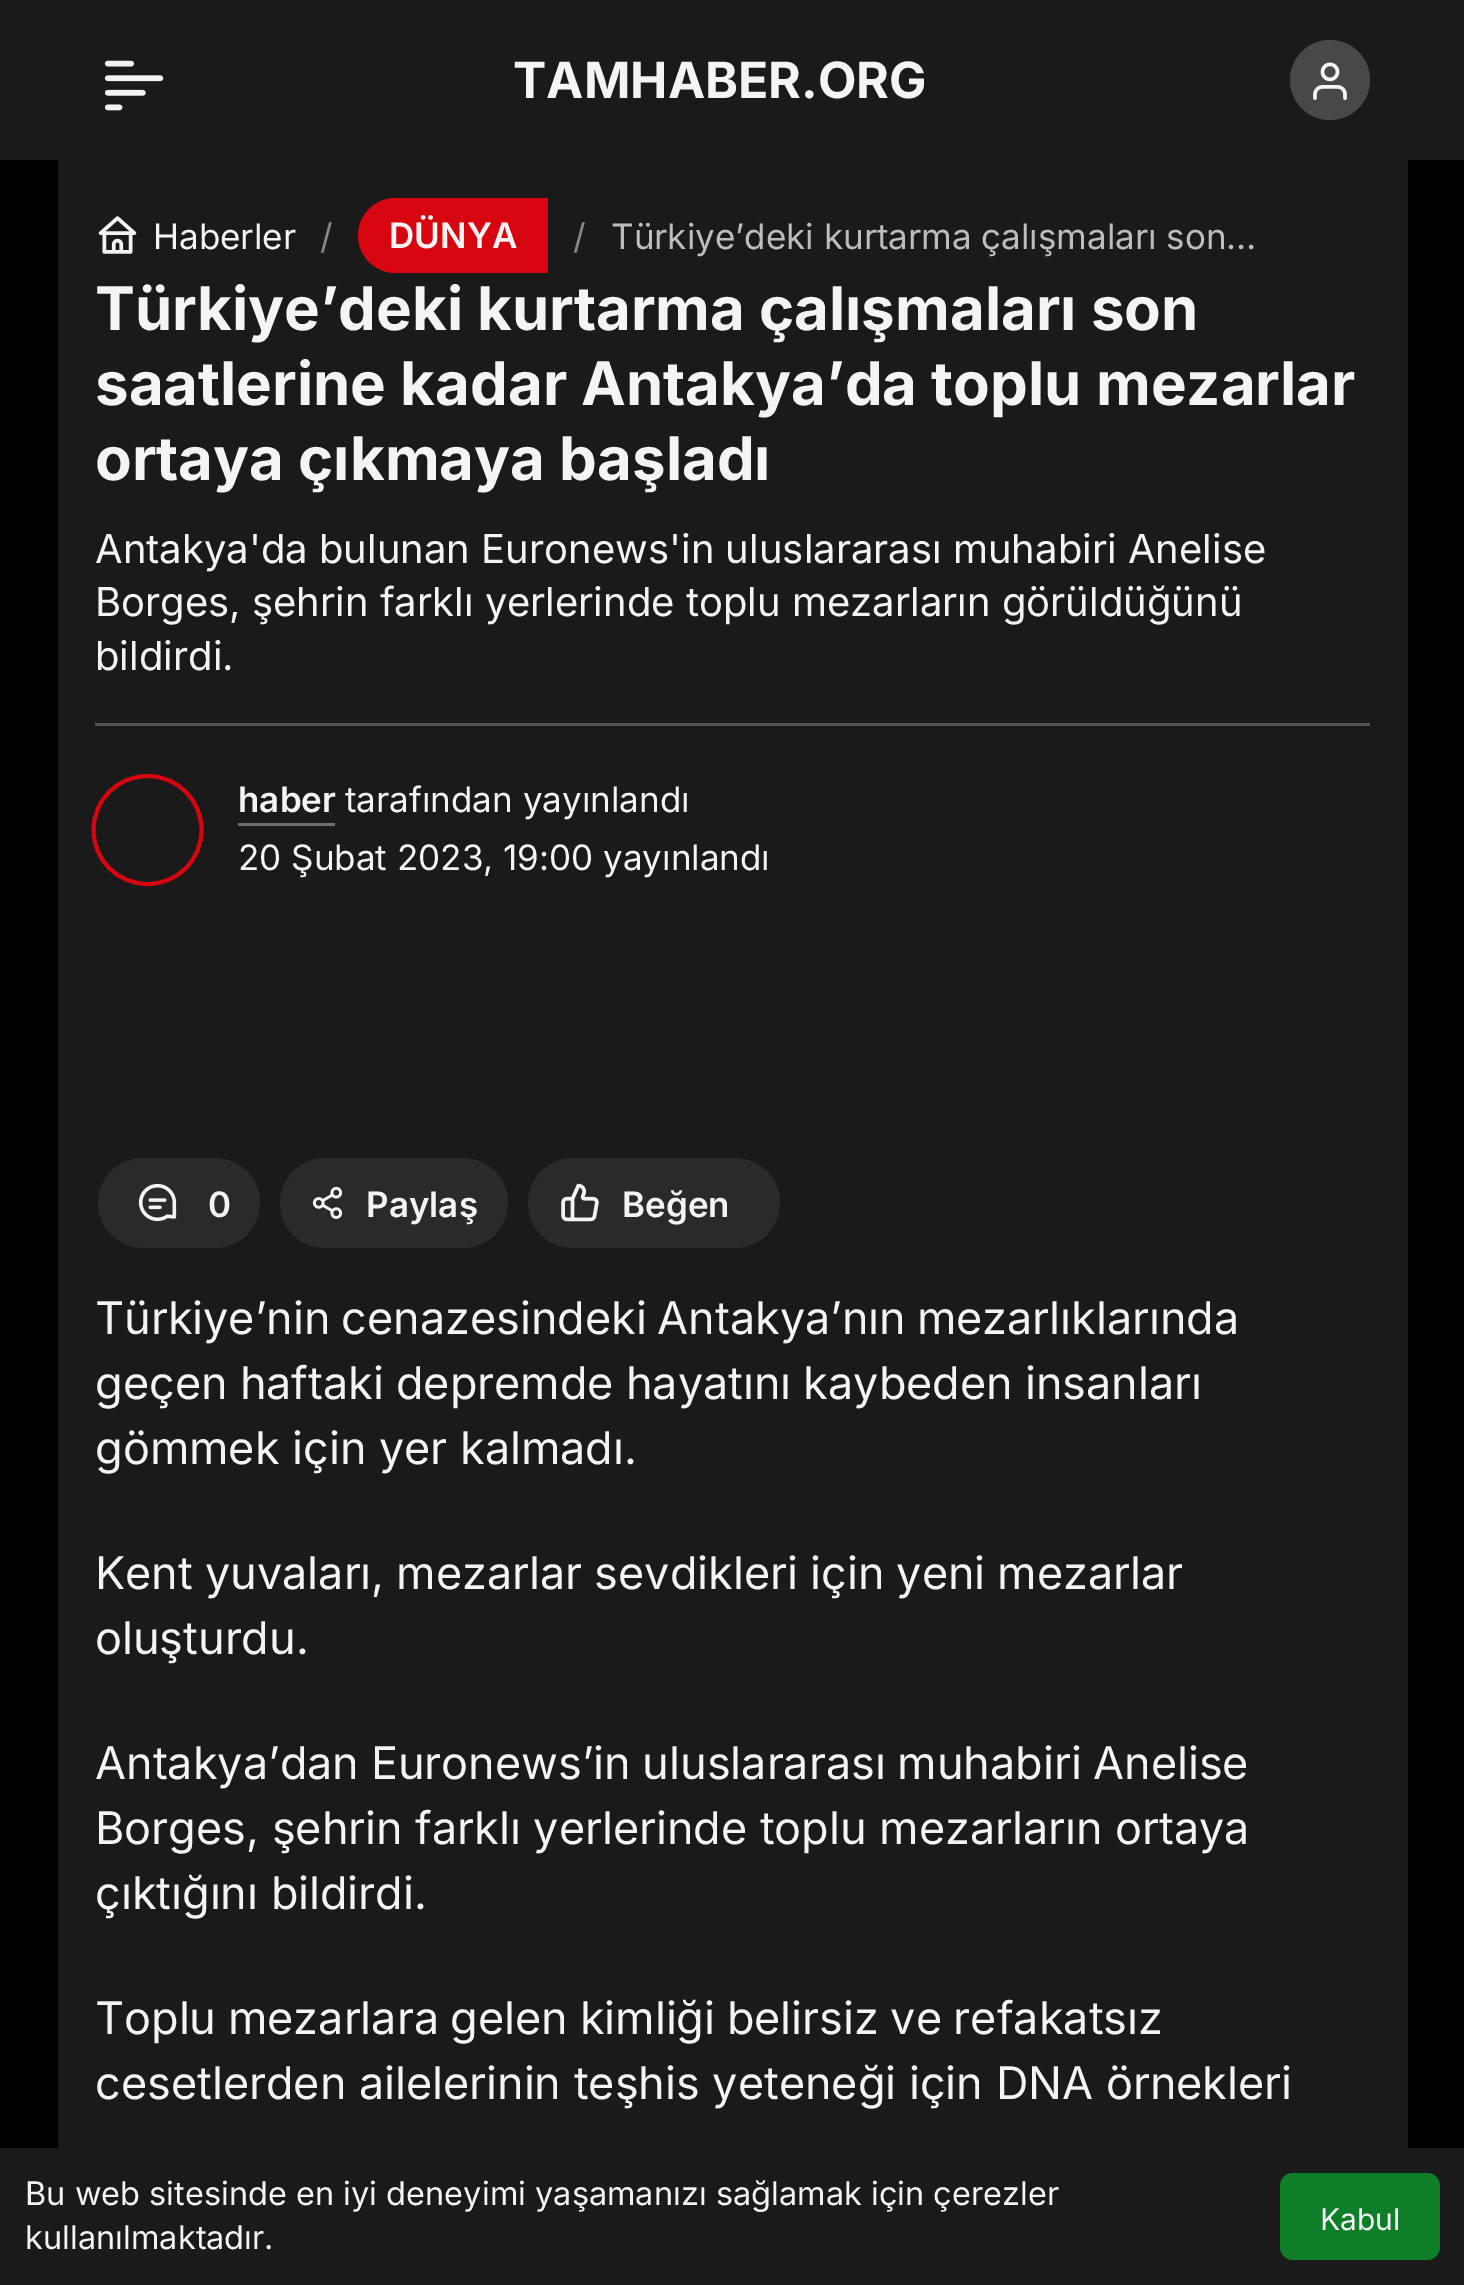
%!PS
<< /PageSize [1464 2285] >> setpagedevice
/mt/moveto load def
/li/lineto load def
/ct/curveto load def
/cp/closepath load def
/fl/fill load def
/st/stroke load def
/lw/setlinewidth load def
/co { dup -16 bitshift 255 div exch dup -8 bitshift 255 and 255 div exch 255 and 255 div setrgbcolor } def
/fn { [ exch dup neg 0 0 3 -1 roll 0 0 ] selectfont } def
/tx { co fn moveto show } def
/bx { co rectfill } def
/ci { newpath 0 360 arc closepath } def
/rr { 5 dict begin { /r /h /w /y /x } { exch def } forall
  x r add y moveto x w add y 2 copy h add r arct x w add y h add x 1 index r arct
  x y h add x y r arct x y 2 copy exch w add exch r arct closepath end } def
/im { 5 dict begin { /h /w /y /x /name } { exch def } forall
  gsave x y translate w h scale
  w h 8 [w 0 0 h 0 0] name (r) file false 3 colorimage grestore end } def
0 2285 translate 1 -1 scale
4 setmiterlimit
0 0 1464 2285 16#000000 bx
0 0 1464 160 16#1A1A1A bx
(media/1.raw) 104 60 60 51 im
16#484848 co
1330 80 40 ci fl
(media/2.raw) 1313 62 34 38 im
58 160 1350 1988 16#1A1A1A bx
(media/3.raw) 98 216 39 38 im
16#D7050F co
395.5 198 mt 548 198 li 548 273 li 395.5 273 li 375 273 358 256 358 235.5 ct 358 215 375 198 395.5 198 ct cp fl
95 723 1275 3 16#535353 bx
16#D7050F co
4.1 lw
1 setlinecap
[1.35 1.35] 0 setdash
147.5 776 mt 177.5 776 201.5 800 201.5 830 ct 201.5 860 177.5 884 147.5 884 ct 117.5 884 93.5 860 93.5 830 ct 93.5 800 117.5 776 147.5 776 ct cp st
238 823 97 3 16#6E6E6E bx
16#2A2A2A co
98 1158 162 90 45 rr fl
(media/4.raw) 138 1183 39 39 im
280 1158 228 90 45 rr fl
(media/5.raw) 312 1186 31 33 im
528 1158 252 90 45 rr fl
(media/6.raw) 561 1183 38 39 im
0 2148 1464 137 16#1A1A1A bx
16#0F7E29 co
1280 2173 160 87 13 rr fl
(TAMHABER.ORG) 513 98 /Inter-Bold 50 16#F4F4F4 tx
(Haberler) 153 249 /Inter-Regular 35 16#F4F4F4 tx
(/) 320 249 /Inter-Regular 35 16#878787 tx
(DÜNYA) 389 248 /Inter-SemiBold 35 16#FDF3F3 tx
(/) 573 249 /Inter-Regular 35 16#878787 tx
(Türkiye’deki kurtarma çalışmaları son…) 611 249 /Inter-Regular 35 16#BDBDBD tx
(Türkiye’deki kurtarma çalışmaları son) 95 330 /Inter-Bold 60 16#F4F4F4 tx
(saatlerine kadar Antakya’da toplu mezarlar) 95 405 /Inter-Bold 60 16#F4F4F4 tx
(ortaya çıkmaya başladı) 95 480 /Inter-Bold 60 16#F4F4F4 tx
(Antakya'da bulunan Euronews'in uluslararası muhabiri Anelise) 95 563 /Inter-Regular 40 16#F4F4F4 tx
(Borges, şehrin farklı yerlerinde toplu mezarların görüldüğünü) 95 616 /Inter-Regular 40 16#F4F4F4 tx
(bildirdi.) 95 670 /Inter-Regular 40 16#F4F4F4 tx
(haber) 238 812 /Inter-SemiBold 35 16#F4F4F4 tx
(tarafından yayınlandı) 345 812 /Inter-Regular 35 16#F4F4F4 tx
(20 Şubat 2023, 19:00 yayınlandı) 238 870 /Inter-Regular 35 16#F4F4F4 tx
(0) 208 1217 /Inter-SemiBold 35 16#F4F4F4 tx
(Paylaş) 366 1217 /Inter-SemiBold 35 16#F4F4F4 tx
(Beğen) 622 1217 /Inter-SemiBold 35 16#F4F4F4 tx
/Inter-Regular 45 fn
95 1334 mt -2 0 32 (Türkiye’nin cenazesindeki Antakya’nın mezarlıklarında) widthshow
95 1399 mt -.5 0 32 (geçen haftaki depremde hayatını kaybeden insanları) widthshow
(gömmek için yer kalmadı.) 95 1464 /Inter-Regular 45 16#F4F4F4 tx
95 1589 mt -.5 0 32 (Kent yuvaları, mezarlar sevdikleri için yeni mezarlar) widthshow
(oluşturdu.) 95 1654 /Inter-Regular 45 16#F4F4F4 tx
95 1779 mt -1 0 32 (Antakya’dan Euronews’in uluslararası muhabiri Anelise) widthshow
(Borges, şehrin farklı yerlerinde toplu mezarların ortaya) 95 1844 /Inter-Regular 45 16#F4F4F4 tx
(çıktığını bildirdi.) 95 1909 /Inter-Regular 45 16#F4F4F4 tx
95 2034 mt -1 0 32 (Toplu mezarlara gelen kimliği belirsiz ve refakatsız) widthshow
(cesetlerden ailelerinin teşhis yeteneği için DNA örnekleri) 95 2099 /Inter-Regular 45 16#F4F4F4 tx
(Bu web sitesinde en iyi deneyimi yaşamanızı sağlamak için çerezler) 25 2205 /Inter-Regular 32.5 16#F4F4F4 tx
(kullanılmaktadır.) 25 2249 /Inter-Regular 32.5 16#F4F4F4 tx
(Kabul) 1320 2230 /Inter-Regular 30 16#F4F4F4 tx
showpage
